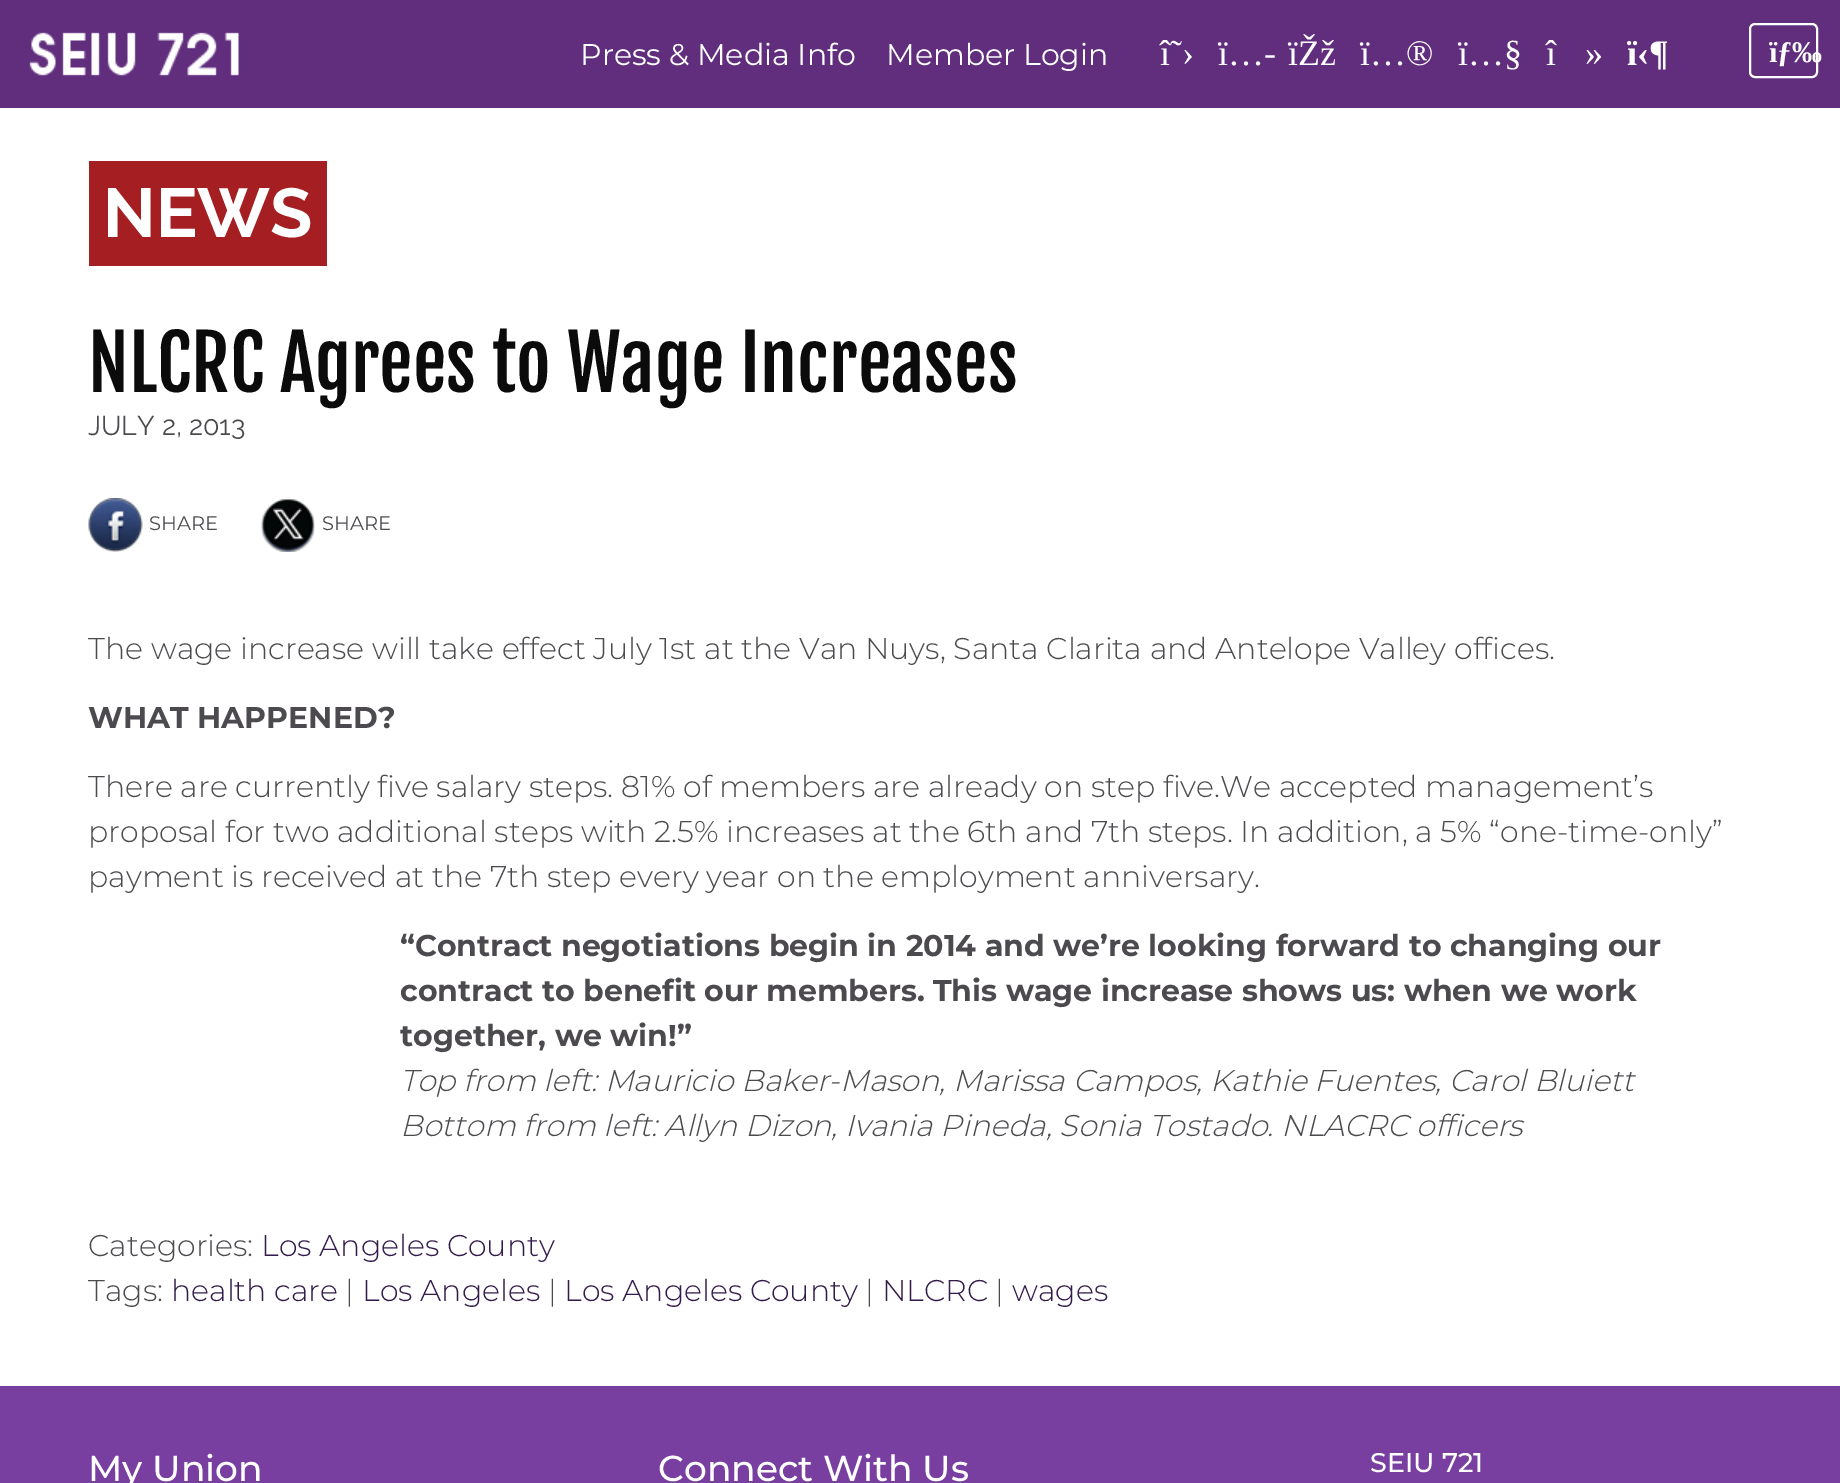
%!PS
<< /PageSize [1840 1483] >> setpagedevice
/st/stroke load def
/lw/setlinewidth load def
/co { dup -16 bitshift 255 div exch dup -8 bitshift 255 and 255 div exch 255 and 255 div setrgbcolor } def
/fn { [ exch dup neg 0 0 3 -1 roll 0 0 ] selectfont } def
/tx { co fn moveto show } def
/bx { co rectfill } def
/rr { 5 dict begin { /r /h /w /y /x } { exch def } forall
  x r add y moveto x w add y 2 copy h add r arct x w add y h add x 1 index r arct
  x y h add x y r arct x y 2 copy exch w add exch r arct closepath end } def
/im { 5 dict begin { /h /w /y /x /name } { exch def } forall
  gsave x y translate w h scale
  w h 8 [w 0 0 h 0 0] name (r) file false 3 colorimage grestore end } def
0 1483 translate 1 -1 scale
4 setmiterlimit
0 0 1840 1483 16#FFFFFF bx
0 0 1840 108 16#612D7D bx
(media/1.raw) 29 32 210 44 im
16#FFFFFF co
2 lw
1750 24 67 53 5 rr st
89 161 238 105 16#A51E22 bx
(media/2.raw) 88 498 55 54 im
(media/3.raw) 261 498 54 54 im
0 1386 1840 97 16#783EA0 bx
(Press & Media Info) 580 65 /Montserrat-Regular 30 16#FFFFFF tx
(Member Login) 886 65 /Montserrat-Regular 30 16#FFFFFF tx
(î˜›) 1160 65 /LiberationSerif-Regular 36 16#FFFFFF tx
(ï…-) 1218 65 /LiberationSerif-Regular 36 16#FFFFFF tx
(ïŽž) 1288 65 /LiberationSerif-Regular 36 16#FFFFFF tx
(ï…®) 1360 65 /LiberationSerif-Regular 36 16#FFFFFF tx
(ï…§) 1458 65 /LiberationSerif-Regular 36 16#FFFFFF tx
(î) 1546 65 /LiberationSerif-Regular 36 16#FFFFFF tx
(») 1585 65 /LiberationSerif-Regular 36 16#FFFFFF tx
(ï‹¶) 1627 65 /LiberationSerif-Bold 36 16#FFFFFF tx
(ïƒ‰) 1769 62 /LiberationSerif-Bold 30 16#FFFFFF tx
(NEWS) 103 237 /Raleway-Bold 69 16#FFFFFF tx
(NLCRC Agrees to Wage Increases) 88 392 /FjallaOne-Regular 75 16#0C0B0B tx
(JULY 2, 2013) 88 435 /Raleway-Regular 27 16#4C4A4E tx
(SHARE) 149 530 /Montserrat-Regular 19.5 16#4C4A4E tx
(SHARE) 322 530 /Montserrat-Regular 19.5 16#4C4A4E tx
(The wage increase will take effect July 1st at the Van Nuys, Santa Clarita and Antelope Valley offices.) 88 659 /Montserrat-Light 30 16#4C4A4E tx
(WHAT HAPPENED?) 88 728 /Montserrat-Bold 30 16#4C4A4E tx
(There are currently five salary steps. 81% of members are already on step five.We accepted management’s) 88 797 /Montserrat-Light 30 16#4C4A4E tx
(proposal for two additional steps with 2.5% increases at the 6th and 7th steps. In addition, a 5% “one-time-only”) 88 842 /Montserrat-Light 30 16#4C4A4E tx
(payment is received at the 7th step every year on the employment anniversary.) 88 887 /Montserrat-Light 30 16#4C4A4E tx
(“Contract negotiations begin in 2014 and we’re looking forward to changing our) 400 956 /Montserrat-Bold 30 16#4C4A4E tx
(contract to benefit our members. This wage increase shows us: when we work) 400 1001 /Montserrat-Bold 30 16#4C4A4E tx
(together, we win!”) 400 1046 /Montserrat-Bold 30 16#4C4A4E tx
(Top from left: Mauricio Baker-Mason, Marissa Campos, Kathie Fuentes, Carol Bluiett) 400 1091 /Montserrat-LightItalic 30 16#4C4A4E tx
(Bottom from left: Allyn Dizon, Ivania Pineda, Sonia Tostado. NLACRC officers) 400 1136 /Montserrat-LightItalic 30 16#4C4A4E tx
(Categories:) 88 1256 /Montserrat-Light 30 16#4C4A4E tx
(Los Angeles County) 261 1256 /Montserrat-Light 30 16#331B4B tx
(Tags:) 88 1301 /Montserrat-Light 30 16#4C4A4E tx
(health care) 171 1301 /Montserrat-Light 30 16#331B4B tx
(|) 345 1301 /Montserrat-Light 30 16#4C4A4E tx
(Los Angeles) 362 1301 /Montserrat-Light 30 16#331B4B tx
(|) 548 1301 /Montserrat-Light 30 16#4C4A4E tx
(Los Angeles County) 564 1301 /Montserrat-Light 30 16#331B4B tx
(|) 865 1301 /Montserrat-Light 30 16#4C4A4E tx
(NLCRC) 882 1301 /Montserrat-Light 30 16#331B4B tx
(|) 995 1301 /Montserrat-Light 30 16#4C4A4E tx
(wages) 1012 1301 /Montserrat-Light 30 16#331B4B tx
(My Union) 88 1481 /Montserrat-Medium 36 16#FFFFFF tx
(Connect With Us) 658 1481 /Montserrat-Medium 36 16#FFFFFF tx
(SEIU 721) 1370 1472 /Montserrat-Medium 27 16#FFFFFF tx
showpage
